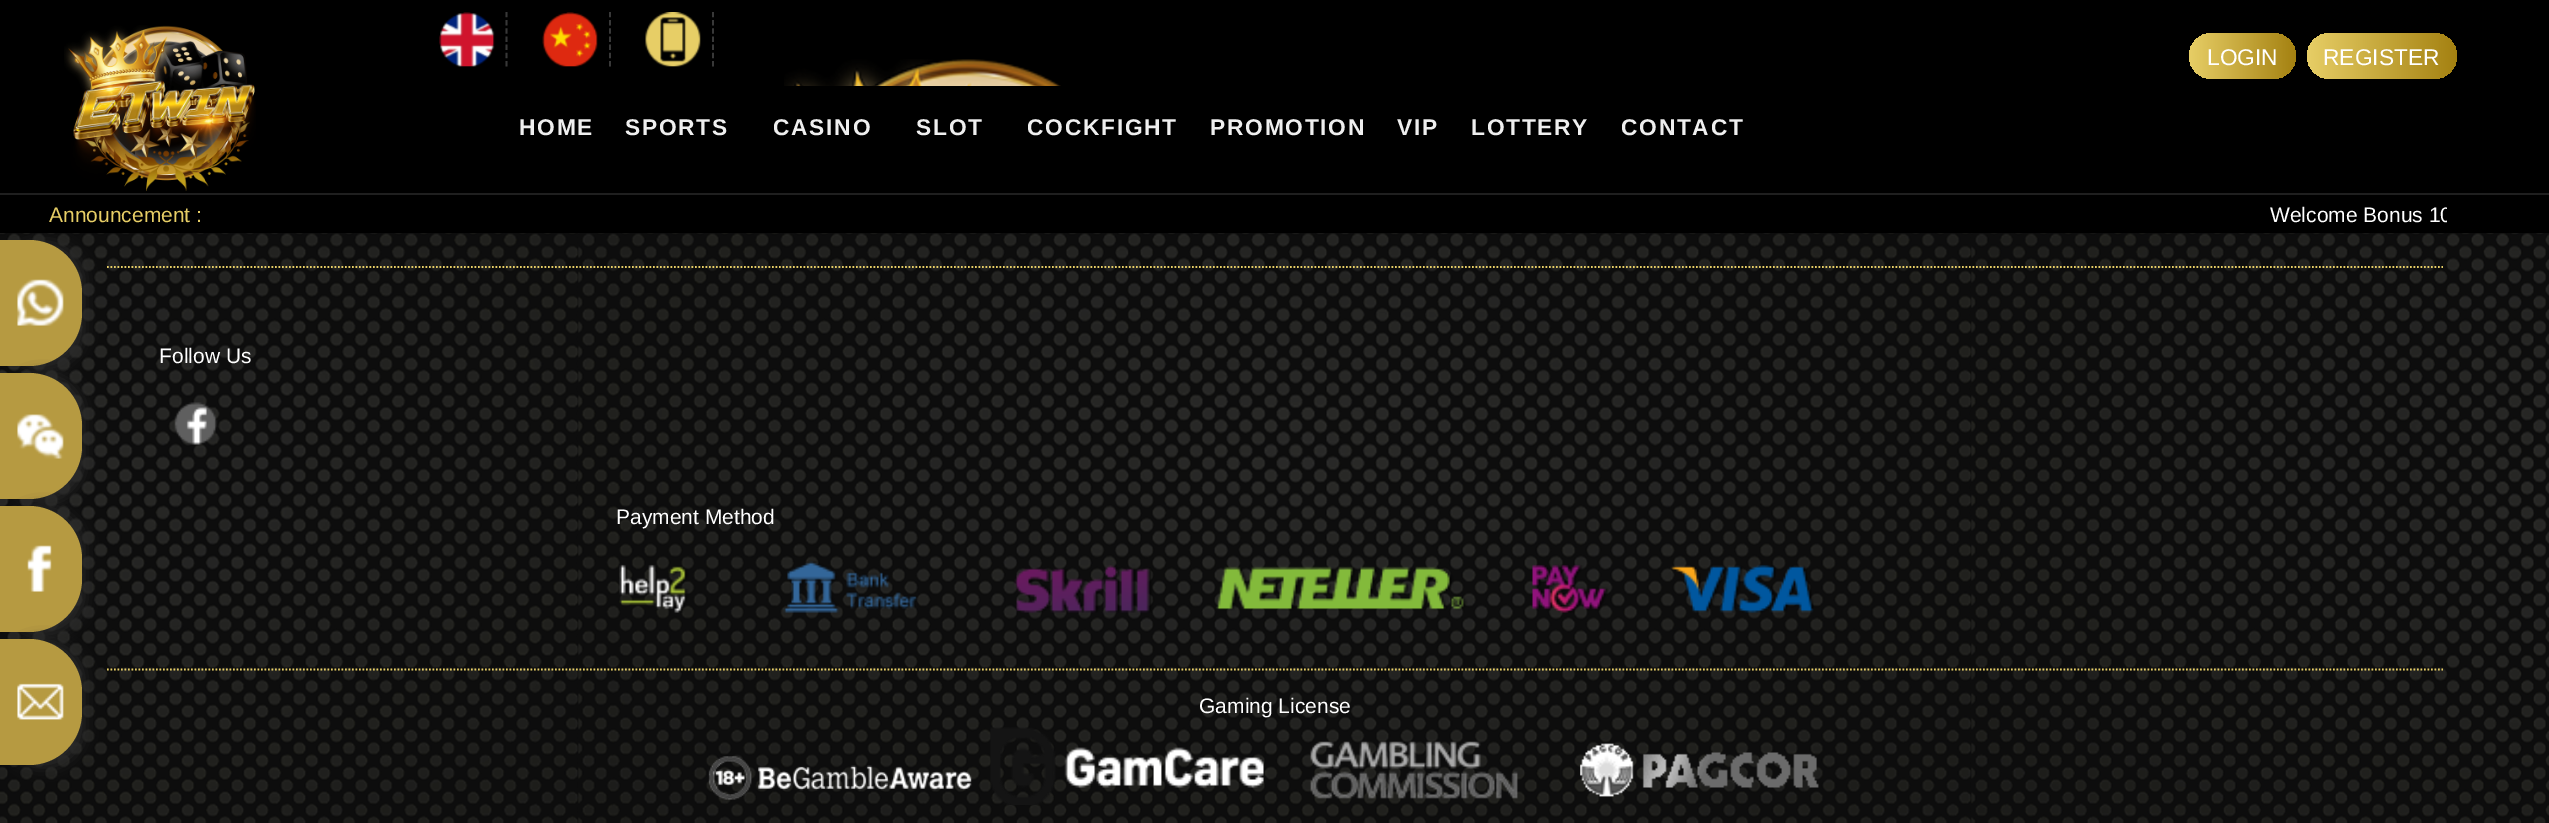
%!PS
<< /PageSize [2549 823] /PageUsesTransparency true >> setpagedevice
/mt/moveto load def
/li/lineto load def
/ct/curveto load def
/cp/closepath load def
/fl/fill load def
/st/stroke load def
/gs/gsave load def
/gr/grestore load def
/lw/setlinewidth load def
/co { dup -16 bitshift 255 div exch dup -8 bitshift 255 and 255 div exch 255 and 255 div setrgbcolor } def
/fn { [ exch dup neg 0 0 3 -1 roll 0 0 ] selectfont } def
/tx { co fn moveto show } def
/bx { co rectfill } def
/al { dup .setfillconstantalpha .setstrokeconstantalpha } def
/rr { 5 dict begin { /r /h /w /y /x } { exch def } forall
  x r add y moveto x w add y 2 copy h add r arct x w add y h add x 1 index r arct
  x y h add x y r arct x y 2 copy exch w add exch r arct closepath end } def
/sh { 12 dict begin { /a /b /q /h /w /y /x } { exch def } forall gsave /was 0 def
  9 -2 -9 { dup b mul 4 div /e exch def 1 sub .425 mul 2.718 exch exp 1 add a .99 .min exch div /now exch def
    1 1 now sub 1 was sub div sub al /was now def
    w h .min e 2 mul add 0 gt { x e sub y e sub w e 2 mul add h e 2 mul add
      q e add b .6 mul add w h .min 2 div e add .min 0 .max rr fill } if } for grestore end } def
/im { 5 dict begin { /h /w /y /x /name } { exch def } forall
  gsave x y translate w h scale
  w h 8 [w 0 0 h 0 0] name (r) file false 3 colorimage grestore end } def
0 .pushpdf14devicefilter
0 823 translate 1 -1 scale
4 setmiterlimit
0 0 2549 823 16#FFFFFF bx
0 0 2549 193 16#000000 bx
0 193 2549 2 16#1F1F1F bx
16#383838 co
1.8 lw
[5.25 2.92] 0 setdash
506.5 12 mt 506.5 66.5 li st
(media/1.raw) 439 12 56 55 im
610 12 mt 610 66.5 li st
(media/2.raw) 542 12 56 55 im
713 12 mt 713 66.5 li st
(media/3.raw) 645 12 56 55 im
(media/4.raw) 784 59 277 27 im
gs 2189 33 107 46 23 rr clip newpath
<< /ShadingType 2 /ColorSpace /DeviceRGB /Coords [2296 56 2189 56] /Extend [true true] /Function << /FunctionType 2 /Domain [0 1] /C0 [.643 .506 .067] /C1 [.906 .808 .4] /N 1 >> >> shfill gr
gs 2307 33 150 46 23 rr clip newpath
<< /ShadingType 2 /ColorSpace /DeviceRGB /Coords [2457 56 2307 56] /Extend [true true] /Function << /FunctionType 2 /Domain [0 1] /C0 [.643 .506 .067] /C1 [.906 .808 .4] /N 1 >> >> shfill gr
(media/5.raw) 64 25 192 166 im
(media/6.raw) 0 233 2549 590 im
16#2A2A2A co
2 242 82 126 53 7 1 sh
0 195 2549 38 16#000000 bx
16#B69A41 co
0 240 mt 29 240 li 58.5 240 82 263.5 82 293 ct 82 313 li 82 342.5 58.5 366 29 366 ct 0 366 li cp fl
(media/7.raw) 17 279 47 47 im
16#2A2A2A co
2 375 82 126 53 7 1 sh
16#B69A41 co
0 373 mt 29 373 li 58.5 373 82 396.5 82 426 ct 82 446 li 82 475.5 58.5 499 29 499 ct 0 499 li cp fl
(media/8.raw) 17 414 47 45 im
16#2A2A2A co
2 508 82 126 53 7 1 sh
16#B69A41 co
0 506 mt 29 506 li 58.5 506 82 529.5 82 559 ct 82 579 li 82 608.5 58.5 632 29 632 ct 0 632 li cp fl
(media/9.raw) 27 545 25 47 im
16#2A2A2A co
2 641 82 126 53 7 1 sh
16#B69A41 co
0 639 mt 29 639 li 58.5 639 82 662.5 82 692 ct 82 712 li 82 741.5 58.5 765 29 765 ct 0 765 li cp fl
(media/10.raw) 17 683 47 37 im
16#E7CE66 co
[1.75 1.75] 0 setdash
107 267 mt 2443 267 li st
107 669.5 mt 2443 669.5 li st
(media/11.raw) 174 402 44 43 im
(media/12.raw) 619 561 1195 52 im
(media/13.raw) 708 756 264 44 im
(media/14.raw) 990 727 274 78 im
(media/15.raw) 1310 741 208 58 im
(media/16.raw) 1580 743 239 54 im
(LOGIN) 2207 65 /LiberationSans-Regular 22.75 16#FFFFFF tx
(REGISTER) 2323 65 /LiberationSans-Regular 22.75 16#FFFFFF tx
/LiberationSans-Bold 22.75 fn
16#EFEFEF co
519 135 mt 1.75 0 (HOME) ashow
625 135 mt 1.75 0 (SPORTS) ashow
773 135 mt 1.75 0 (CASINO) ashow
916 135 mt 1.75 0 (SLOT) ashow
1027 135 mt 1.75 0 (COCKFIGHT) ashow
1210 135 mt 1.75 0 (PROMOTION) ashow
1397 135 mt 1.75 0 (VIP) ashow
1471 135 mt 1.75 0 (LOTTERY) ashow
1621 135 mt 1.75 0 (CONTACT) ashow
(Announcement :) 49 222 /LiberationSans-Regular 21 16#E7CE66 tx
gs
201 203 2246 25 rectclip
(Welcome Bonus 10) 2270 222 /LiberationSans-Regular 21 16#FFFFFF tx
gr
(Follow Us) 159 363 /LiberationSans-Regular 21 16#FFFFFF tx
(Payment Method) 616 524 /LiberationSans-Regular 21 16#FFFFFF tx
(Gaming License) 1199 713 /LiberationSans-Regular 21 16#FFFFFF tx
.poppdf14devicefilter showpage
